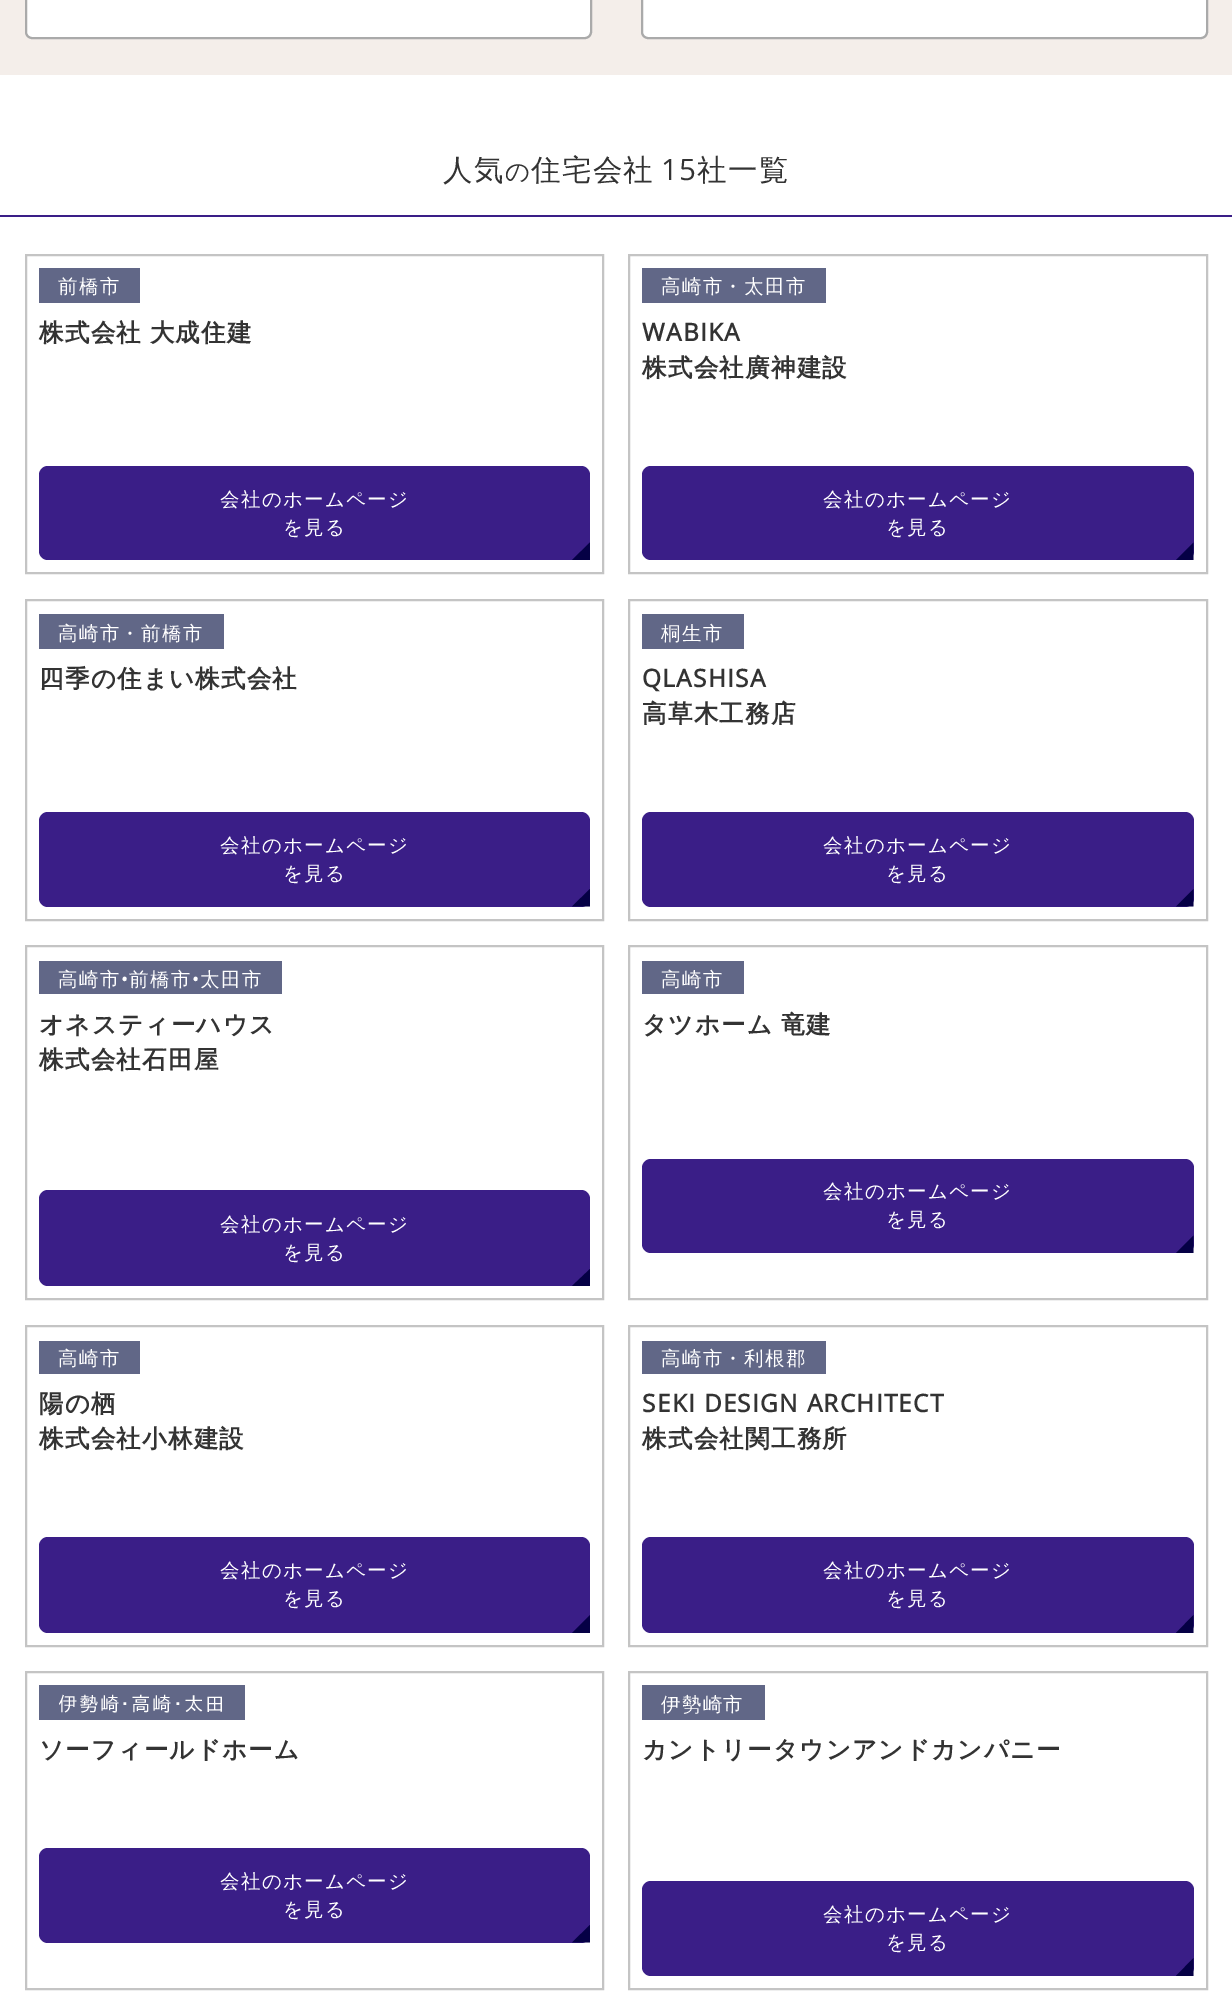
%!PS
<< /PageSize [1232 2011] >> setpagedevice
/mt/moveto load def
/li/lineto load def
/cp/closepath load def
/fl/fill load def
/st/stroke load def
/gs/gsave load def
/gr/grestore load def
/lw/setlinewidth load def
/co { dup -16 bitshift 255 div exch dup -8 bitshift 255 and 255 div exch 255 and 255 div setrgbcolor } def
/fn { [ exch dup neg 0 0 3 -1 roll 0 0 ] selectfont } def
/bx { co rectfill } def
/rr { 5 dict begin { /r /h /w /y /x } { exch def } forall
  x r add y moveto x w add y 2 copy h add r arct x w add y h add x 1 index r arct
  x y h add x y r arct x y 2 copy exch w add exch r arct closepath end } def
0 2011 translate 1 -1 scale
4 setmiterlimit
0 0 1232 2011 16#FFFFFF bx
0 0 1232 75 16#F4EEEA bx
16#FFFFFF co
26 -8 565 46 6 rr gs fl gr
16#AAAAAA co
2 lw
st
16#FFFFFF co
642 -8 565 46 6 rr gs fl gr
16#AAAAAA co
st
0 215 1232 2 16#3A1E87 bx
16#C4C4C4 co
26 255 577 318 rectstroke
39 268 101 35 16#616787 bx
16#3A1E87 co
39 466 551 94 9 rr fl
16#050045 co
590 560 mt 572 560 li 590 542.5 li cp fl
16#C4C4C4 co
629 255 578 318 rectstroke
642 268 184 35 16#616787 bx
16#3A1E87 co
642 466 552 94 9 rr fl
16#050045 co
1193.5 560 mt 1176 560 li 1193.5 542.5 li cp fl
16#C4C4C4 co
26 600 577 320 rectstroke
39 614 185 35 16#616787 bx
16#3A1E87 co
39 812 551 95 9 rr fl
16#050045 co
590 906.5 mt 572 906.5 li 590 889 li cp fl
16#C4C4C4 co
629 600 578 320 rectstroke
642 614 102 35 16#616787 bx
16#3A1E87 co
642 812 552 95 9 rr fl
16#050045 co
1193.5 906.5 mt 1176 906.5 li 1193.5 889 li cp fl
16#C4C4C4 co
26 946 577 353 rectstroke
39 961 243 33 16#616787 bx
16#3A1E87 co
39 1190 551 96 9 rr fl
16#050045 co
590 1286 mt 572 1286 li 590 1269 li cp fl
16#C4C4C4 co
629 946 578 353 rectstroke
642 961 102 33 16#616787 bx
16#3A1E87 co
642 1159 552 94 9 rr fl
16#050045 co
1193.5 1253 mt 1176 1253 li 1193.5 1235.5 li cp fl
16#C4C4C4 co
26 1326 577 320 rectstroke
39 1341 101 33 16#616787 bx
16#3A1E87 co
39 1537 551 96 9 rr fl
16#050045 co
590 1633 mt 572 1633 li 590 1615 li cp fl
16#C4C4C4 co
629 1326 578 320 rectstroke
642 1341 184 33 16#616787 bx
16#3A1E87 co
642 1537 552 96 9 rr fl
16#050045 co
1193.5 1633 mt 1176 1633 li 1193.5 1615 li cp fl
16#C4C4C4 co
26 1672 577 317 rectstroke
39 1685 206 35 16#616787 bx
16#3A1E87 co
39 1848 551 95 9 rr fl
16#050045 co
590 1942.5 mt 572 1942.5 li 590 1925 li cp fl
16#C4C4C4 co
629 1672 578 317 rectstroke
642 1685 123 35 16#616787 bx
16#3A1E87 co
642 1881 552 95 9 rr fl
16#050045 co
1193.5 1976 mt 1176 1976 li 1193.5 1958 li cp fl
/WenQuanYiZenHei-Medium 29.5 fn
16#333333 co
443 180 mt 1.25 0 (人気) ashow
/WenQuanYiZenHei-Medium 24.5 fn
505 180 mt 1.25 0 (の) ashow
/WenQuanYiZenHei-Medium 29.5 fn
531 180 mt 1.25 0 (住宅会社) ashow
/OpenSans-Regular 29.5 fn
661 180 mt 1.25 0 (15) ashow
/WenQuanYiZenHei-Medium 29.5 fn
697 180 mt 1.25 0 (社一覧) ashow
/WenQuanYiZenHei-Medium 19.5 fn
16#FFFFFF co
58 293 mt 1.25 0 (前橋市) ashow
/WenQuanYiZenHei-Bold 24.5 fn
16#333333 co
39 341 mt -1 0 32 1.25 0 (株式会社 大成住建) awidthshow
/WenQuanYiZenHei-Medium 19.5 fn
16#FFFFFF co
220 506 mt 1.25 0 (会社のホームページ) ashow
283 534 mt 1.25 0 (を見る) ashow
661 293 mt 1.25 0 (高崎市・太田市) ashow
/OpenSans-Bold 24.5 fn
16#333333 co
642 341 mt 1.25 0 (WABIKA) ashow
/WenQuanYiZenHei-Bold 24.5 fn
642 376 mt 1.25 0 (株式会社廣神建設) ashow
/WenQuanYiZenHei-Medium 19.5 fn
16#FFFFFF co
823 506 mt 1.25 0 (会社のホームページ) ashow
886 534 mt 1.25 0 (を見る) ashow
58 640 mt 1.25 0 (高崎市・前橋市) ashow
/WenQuanYiZenHei-Bold 24.5 fn
16#333333 co
39 687 mt 1.25 0 (四季の住まい株式会社) ashow
/WenQuanYiZenHei-Medium 19.5 fn
16#FFFFFF co
220 852 mt 1.25 0 (会社のホームページ) ashow
283 880 mt 1.25 0 (を見る) ashow
661 640 mt 1.25 0 (桐生市) ashow
/OpenSans-Bold 24.5 fn
16#333333 co
642 687 mt 1.25 0 (QLASHISA) ashow
/WenQuanYiZenHei-Bold 24.5 fn
642 722 mt 1.25 0 (高草木工務店) ashow
/WenQuanYiZenHei-Medium 19.5 fn
16#FFFFFF co
823 852 mt 1.25 0 (会社のホームページ) ashow
886 880 mt 1.25 0 (を見る) ashow
58 986 mt 1.25 0 (高崎市) ashow
/OpenSans-Regular 19.5 fn
121 986 mt 1.25 0 (•) ashow
/WenQuanYiZenHei-Medium 19.5 fn
129 986 mt 1.25 0 (前橋市) ashow
/OpenSans-Regular 19.5 fn
192 986 mt 1.25 0 (•) ashow
/WenQuanYiZenHei-Medium 19.5 fn
200 986 mt 1.25 0 (太田市) ashow
/WenQuanYiZenHei-Bold 24.5 fn
16#333333 co
39 1033 mt 1.25 0 (オネスティーハウス) ashow
39 1068 mt 1.25 0 (株式会社石田屋) ashow
/WenQuanYiZenHei-Medium 19.5 fn
16#FFFFFF co
220 1231 mt 1.25 0 (会社のホームページ) ashow
283 1259 mt 1.25 0 (を見る) ashow
661 986 mt 1.25 0 (高崎市) ashow
/WenQuanYiZenHei-Bold 24.5 fn
16#333333 co
642 1033 mt -1 0 32 1.25 0 (タツホーム 竜建) awidthshow
/WenQuanYiZenHei-Medium 19.5 fn
16#FFFFFF co
823 1198 mt 1.25 0 (会社のホームページ) ashow
886 1226 mt 1.25 0 (を見る) ashow
58 1365 mt 1.25 0 (高崎市) ashow
/WenQuanYiZenHei-Bold 24.5 fn
16#333333 co
39 1412 mt 1.25 0 (陽の栖) ashow
39 1447 mt 1.25 0 (株式会社小林建設) ashow
/WenQuanYiZenHei-Medium 19.5 fn
16#FFFFFF co
220 1577 mt 1.25 0 (会社のホームページ) ashow
283 1605 mt 1.25 0 (を見る) ashow
661 1365 mt 1.25 0 (高崎市・利根郡) ashow
/OpenSans-Bold 24.5 fn
16#333333 co
642 1412 mt 1.25 0 (SEKI DESIGN ARCHITECT) ashow
/WenQuanYiZenHei-Bold 24.5 fn
642 1447 mt 1.25 0 (株式会社関工務所) ashow
/WenQuanYiZenHei-Medium 19.5 fn
16#FFFFFF co
823 1577 mt 1.25 0 (会社のホームページ) ashow
886 1605 mt 1.25 0 (を見る) ashow
/IPAPGothic-Regular 19.5 fn
58 1711 mt 1.25 0 (伊勢崎･高崎･太田) ashow
/WenQuanYiZenHei-Bold 24.5 fn
16#333333 co
39 1758 mt 1.25 0 (ソーフィールドホーム) ashow
/WenQuanYiZenHei-Medium 19.5 fn
16#FFFFFF co
220 1888 mt 1.25 0 (会社のホームページ) ashow
283 1916 mt 1.25 0 (を見る) ashow
661 1711 mt 1.25 0 (伊勢崎市) ashow
/WenQuanYiZenHei-Bold 24.5 fn
16#333333 co
642 1758 mt 1.25 0 (カントリータウンアンドカンパニー) ashow
/WenQuanYiZenHei-Medium 19.5 fn
16#FFFFFF co
823 1921 mt 1.25 0 (会社のホームページ) ashow
886 1949 mt 1.25 0 (を見る) ashow
showpage
